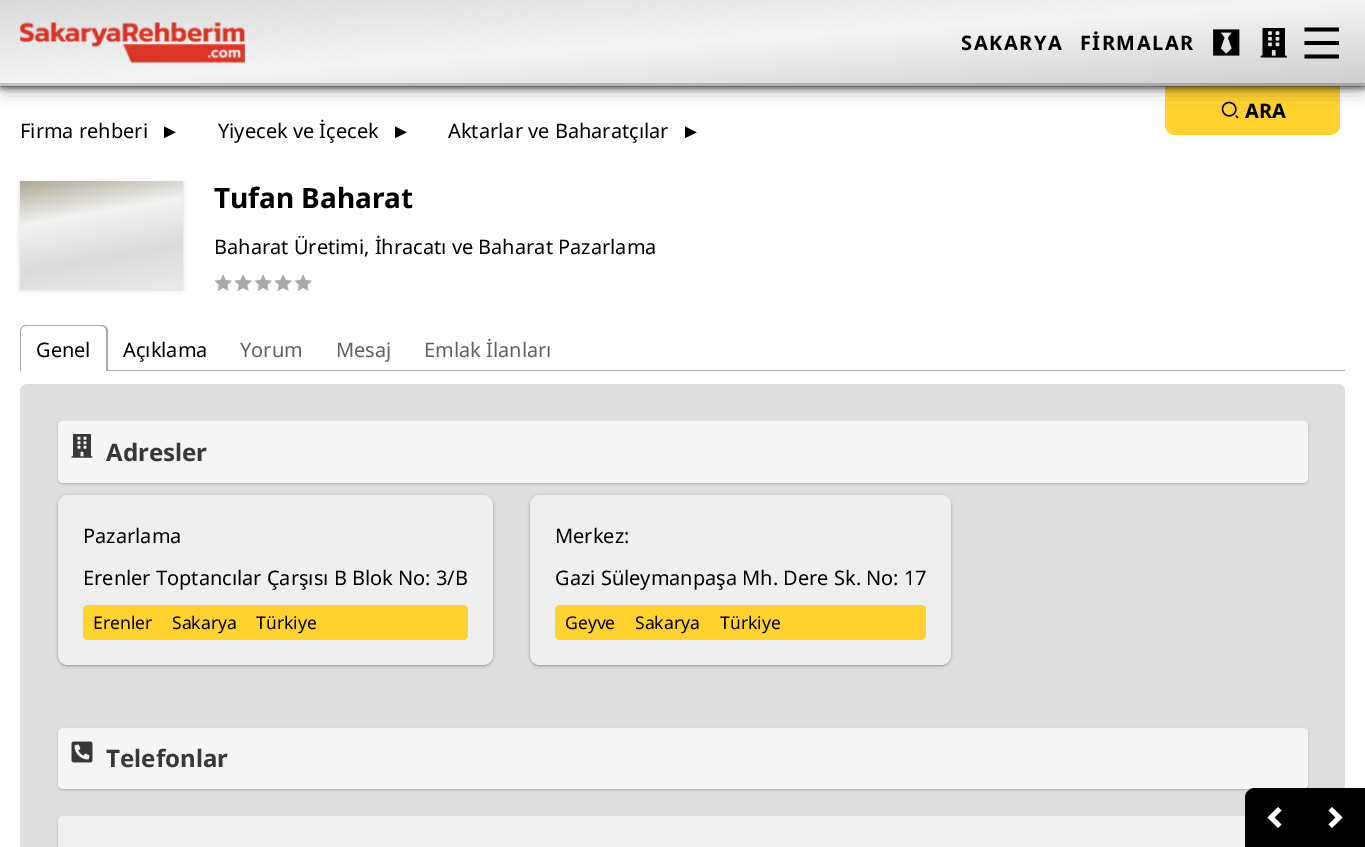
%!PS
<< /PageSize [1365 847] /PageUsesTransparency true >> setpagedevice
/mt/moveto load def
/li/lineto load def
/ct/curveto load def
/cp/closepath load def
/fl/fill load def
/gs/gsave load def
/gr/grestore load def
/co { dup -16 bitshift 255 div exch dup -8 bitshift 255 and 255 div exch 255 and 255 div setrgbcolor } def
/fn { [ exch dup neg 0 0 3 -1 roll 0 0 ] selectfont } def
/tx { co fn moveto show } def
/bx { co rectfill } def
/al { dup .setfillconstantalpha .setstrokeconstantalpha } def
/rr { 5 dict begin { /r /h /w /y /x } { exch def } forall
  x r add y moveto x w add y 2 copy h add r arct x w add y h add x 1 index r arct
  x y h add x y r arct x y 2 copy exch w add exch r arct closepath end } def
/sh { 12 dict begin { /a /b /q /h /w /y /x } { exch def } forall gsave /was 0 def
  9 -2 -9 { dup b mul 4 div /e exch def 1 sub .425 mul 2.718 exch exp 1 add a .99 .min exch div /now exch def
    1 1 now sub 1 was sub div sub al /was now def
    w h .min e 2 mul add 0 gt { x e sub y e sub w e 2 mul add h e 2 mul add
      q e add b .6 mul add w h .min 2 div e add .min 0 .max rr fill } if } for grestore end } def
/im { 5 dict begin { /h /w /y /x /name } { exch def } forall
  gsave x y translate w h scale
  w h 8 [w 0 0 h 0 0] name (r) file false 3 colorimage grestore end } def
0 .pushpdf14devicefilter
0 847 translate 1 -1 scale
4 setmiterlimit
0 0 1365 847 16#FFFFFF bx
16#FFD230 co
1165 85 mt 1340 85 li 1340 125 li 1340 130.5 1335.5 135 1330 135 ct 1175 135 li 1169.5 135 1165 130.5 1165 125 ct cp fl
(media/4.raw) 1221 101 18 18 im
16#000000 co
4 13 1357 78 0 8 .3 sh
0 3 1365 86 0 2.5 .4 sh
gs 0 0 mt 1365 0 li 1365 86 li 0 86 li cp clip newpath
<< /ShadingType 2 /ColorSpace /DeviceRGB /Coords [677 -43 688 129] /Extend [true true] /Function << /FunctionType 3 /Domain [0 1] /Functions [<< /FunctionType 2 /Domain [0 1] /C0 [.855 .855 .855] /C1 [.961 .961 .961] /N 1 >> << /FunctionType 2 /Domain [0 1] /C0 [.961 .961 .961] /C1 [.804 .804 .804] /N 1 >>] /Bounds [.5] /Encode [0 1 0 1] >> >> shfill gr
0.2 al
0 83 1365 4 16#000000 bx
1 al
(media/1.raw) 20 22 225 42 im
(media/2.raw) 1213 29 27 27 im
(media/3.raw) 1260 28 27 30 im
1304.5 27.5 mt 1339 27.5 li 1339 31.5 li 1304.5 31.5 li cp 1304.5 41 mt 1339 41 li 1339 45 li 1304.5 45 li cp 1304.5 54.5 mt 1339 54.5 li 1339 58.5 li 1304.5 58.5 li cp fl
20 183 163 107 0 2.5 .16 sh
gs 20 181 mt 183 181 li 183 289 li 20 289 li cp clip newpath
<< /ShadingType 2 /ColorSpace /DeviceRGB /Coords [113 301 90 169] /Extend [true true] /Function << /FunctionType 3 /Domain [0 1] /Functions [<< /FunctionType 2 /Domain [0 1] /C0 [.918 .918 .918] /C1 [.859 .859 .859] /N 1 >> << /FunctionType 2 /Domain [0 1] /C0 [.859 .859 .859] /C1 [.949 .949 .949] /N 1 >> << /FunctionType 2 /Domain [0 1] /C0 [.949 .949 .949] /C1 [.678 .663 .588] /N 1 >>] /Bounds [.33 .67] /Encode [0 1 0 1 0 1] >> >> shfill gr
(media/5.raw) 214 274 18 17 im
(media/5.raw) 234 274 18 17 im
(media/5.raw) 254 274 18 17 im
(media/5.raw) 274 274 18 17 im
(media/5.raw) 294 274 18 17 im
108 370 1237 1 16#AAAAAA bx
26 325 mt 101 325 li 105 325 108 328 108 331 ct 108 371 li 20 371 li 20 331 li 20 328 23 325 26 325 ct cp 26 326 mt 101 326 li 104 326 106 328 106 331 ct 106 371 li 21 371 li 21 331 li 21 328 23 326 26 326 ct cp eofill
16#DEDEDE co
20 384 1325 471 8 rr fl
16#000000 co
58 423 1250 61 5 1 .24 sh
16#F5F5F5 co
58 421 1250 62 5 rr fl
(media/6.raw) 71 434 22 24 im
16#000000 co
58 496 435 170 10 1 .24 sh
58 496 435 170 10 2 .12 sh
16#EFEFEF co
58 495 435 170 10 rr fl
16#FFD230 co
83 605 385 35 5 rr fl
16#000000 co
530 496 421 170 10 1 .24 sh
530 496 421 170 10 2 .12 sh
16#EFEFEF co
530 495 421 170 10 rr fl
16#FFD230 co
555 605 371 35 5 rr fl
16#000000 co
58 729 1250 61 5 1 .24 sh
16#F5F5F5 co
58 728 1250 61 5 rr fl
(media/7.raw) 71 741 22 22 im
16#000000 co
58 818 1250 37 5 1 .24 sh
16#F1F1F1 co
58 816 1250 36 5 rr fl
16#000000 co
1255 788 mt 1305 788 li 1305 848 li 1245 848 li 1245 798 li 1245 792.5 1249.5 788 1255 788 ct cp fl
16#FFFFFF co
1274.5 817.5 mt 1281.5 824.5 li 1278 828 li 1267.5 817.5 li 1278 807 li 1281.5 810.5 li cp fl
1305 788 60 59 16#000000 bx
16#FFFFFF co
1335.5 817.5 mt 1328.5 810.5 li 1332 807 li 1342.5 817.5 li 1332 828 li 1328.5 824.5 li cp fl
/NotoSans-Bold 20 fn
16#000000 co
961 50 mt 1.5 0 (SAKARYA) ashow
1080 50 mt 1.5 0 (FİRMALAR) ashow
(ARA) 1245 118 /NotoSans-Bold 20 16#000000 tx
(Firma rehberi) 20 138 /NotoSans-Regular 20 16#000000 tx
(►) 160 138 /LiberationSans-Regular 20 16#000000 tx
(Yiyecek ve İçecek) 218 138 /NotoSans-Regular 20 16#000000 tx
(►) 391 138 /LiberationSans-Regular 20 16#000000 tx
(Aktarlar ve Baharatçılar) 448 138 /NotoSans-Regular 20 16#000000 tx
(►) 681 138 /LiberationSans-Regular 20 16#000000 tx
(Tufan Baharat) 214 208 /NotoSans-Bold 28 16#000000 tx
(Baharat Üretimi, İhracatı ve Baharat Pazarlama) 214 254 /NotoSans-Regular 20 16#000000 tx
(Genel) 36 357 /NotoSans-Regular 20 16#000000 tx
(Açıklama) 123 357 /NotoSans-Regular 20 16#000000 tx
(Yorum) 240 357 /NotoSans-Regular 20 16#606060 tx
(Mesaj) 336 357 /NotoSans-Regular 20 16#606060 tx
(Emlak İlanları) 424 357 /NotoSans-Regular 20 16#606060 tx
(Adresler) 106 461 /NotoSans-Bold 24 16#383838 tx
(Pazarlama) 83 543 /NotoSans-Regular 20 16#000000 tx
(Erenler Toptancılar Çarşısı B Blok No: 3/B) 83 585 /NotoSans-Regular 20 16#000000 tx
(Erenler) 93 629 /NotoSans-Regular 17.5 16#000000 tx
(Sakarya) 172 629 /NotoSans-Regular 17.5 16#000000 tx
(Türkiye) 256 629 /NotoSans-Regular 17.5 16#000000 tx
(Merkez:) 555 543 /NotoSans-Regular 20 16#000000 tx
(Gazi Süleymanpaşa Mh. Dere Sk. No: 17) 555 585 /NotoSans-Regular 20 16#000000 tx
(Geyve) 565 629 /NotoSans-Regular 17.5 16#000000 tx
(Sakarya) 635 629 /NotoSans-Regular 17.5 16#000000 tx
(Türkiye) 720 629 /NotoSans-Regular 17.5 16#000000 tx
(Telefonlar) 106 767 /NotoSans-Bold 24 16#383838 tx
.poppdf14devicefilter showpage
